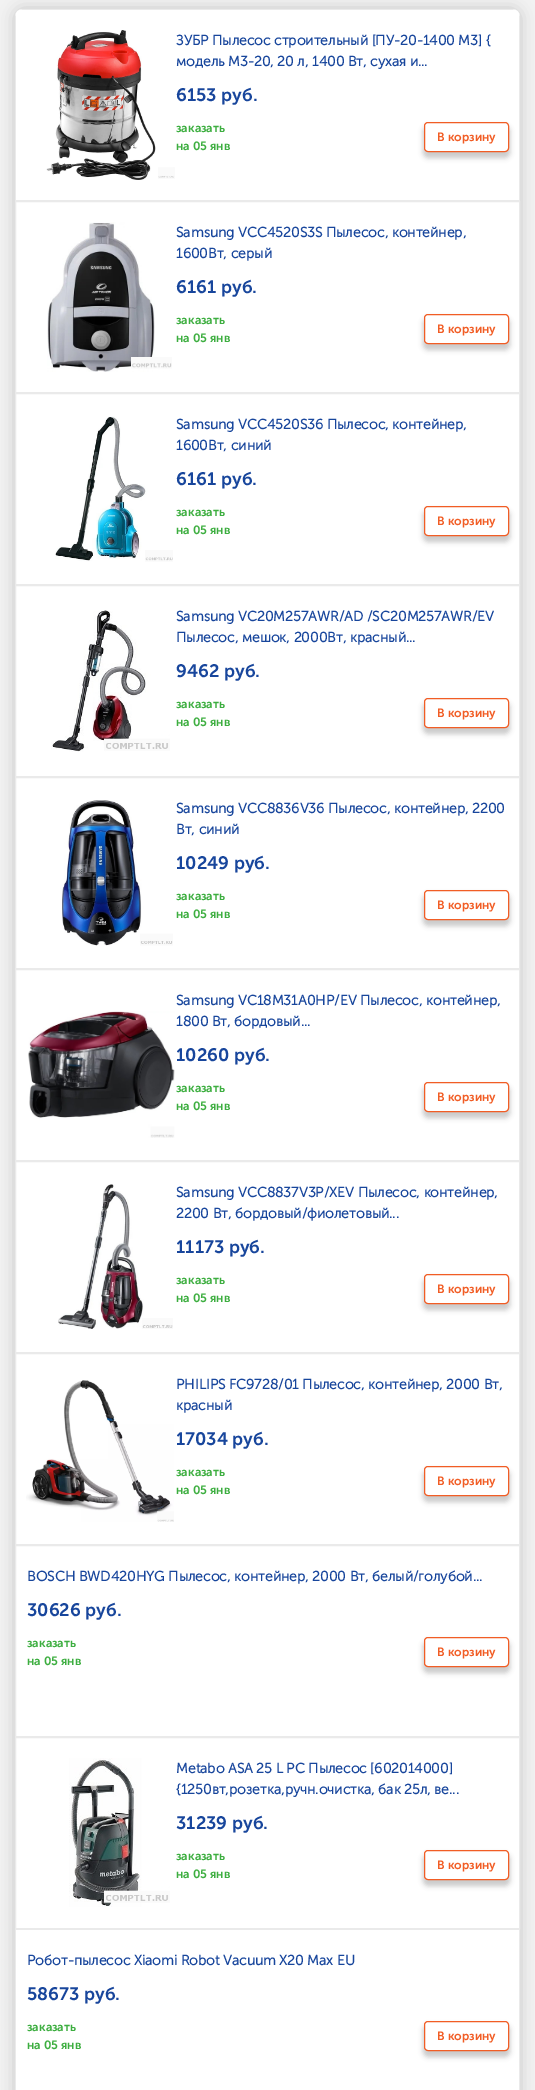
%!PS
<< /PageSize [535 2090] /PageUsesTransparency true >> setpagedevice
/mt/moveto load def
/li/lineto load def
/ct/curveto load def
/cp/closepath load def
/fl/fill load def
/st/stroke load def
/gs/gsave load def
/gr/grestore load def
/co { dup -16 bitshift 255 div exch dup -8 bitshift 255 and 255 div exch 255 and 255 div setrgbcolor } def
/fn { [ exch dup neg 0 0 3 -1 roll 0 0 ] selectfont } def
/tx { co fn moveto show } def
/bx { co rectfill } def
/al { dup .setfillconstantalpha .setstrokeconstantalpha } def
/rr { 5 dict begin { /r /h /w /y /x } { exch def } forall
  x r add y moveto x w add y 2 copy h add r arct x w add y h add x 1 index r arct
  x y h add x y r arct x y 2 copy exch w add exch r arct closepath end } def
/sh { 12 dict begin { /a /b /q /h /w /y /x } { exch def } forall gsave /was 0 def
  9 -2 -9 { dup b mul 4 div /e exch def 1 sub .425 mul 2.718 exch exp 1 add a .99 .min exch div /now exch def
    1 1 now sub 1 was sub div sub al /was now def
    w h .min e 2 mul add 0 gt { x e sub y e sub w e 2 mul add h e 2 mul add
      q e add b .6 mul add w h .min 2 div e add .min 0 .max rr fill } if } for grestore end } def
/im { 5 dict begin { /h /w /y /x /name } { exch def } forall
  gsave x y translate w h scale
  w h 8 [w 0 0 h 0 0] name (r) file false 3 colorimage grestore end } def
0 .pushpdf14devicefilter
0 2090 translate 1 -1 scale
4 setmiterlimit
0 0 535 2090 16#F2F2F2 bx
16#CACACA co
14 8 507 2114 9 7.5 1 sh
16#FFFFFF co
23 9 mt 512 9 li 516.5 9 520 12.5 520 17 ct 520 201 li 15 201 li 15 17 li 15 12.5 18.5 9 23 9 ct cp fl
16#EAEAEA co
15 17 mt 15 201 li 520 201 li 520 17 li 519 13 li 519 200 li 16 200 li 16 13 li cp 23 9 mt 19 10 li 516 10 li 512 9 li cp eofill
(media/1.raw) 46 30 129 150 im
gs
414 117 mt 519 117 li 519 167 li 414 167 li cp 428 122 mt 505 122 li 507 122 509 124 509 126 ct 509 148 li 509 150 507 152 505 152 ct 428 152 li 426 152 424 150 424 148 ct 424 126 li 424 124 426 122 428 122 ct cp eoclip newpath
16#CACACA co
423 126 87 32 5 2.5 1 sh
gr
16#F15D25 co
424.5 122.5 84 29 3.5 rr st
16#FFFFFF co
15.5 201.5 mt 519.5 201.5 li 519.5 392.5 li 15.5 392.5 li cp gs fl gr
16#EAEAEA co
st
(media/2.raw) 47 222 125 150 im
gs
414 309 mt 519 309 li 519 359 li 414 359 li cp 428 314 mt 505 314 li 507 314 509 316 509 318 ct 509 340 li 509 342 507 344 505 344 ct 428 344 li 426 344 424 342 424 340 ct 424 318 li 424 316 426 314 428 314 ct cp eoclip newpath
16#CACACA co
423 318 87 32 5 2.5 1 sh
gr
16#F15D25 co
424.5 314.5 84 29 3.5 rr st
16#FFFFFF co
15.5 393.5 mt 519.5 393.5 li 519.5 584.5 li 15.5 584.5 li cp gs fl gr
16#EAEAEA co
st
(media/3.raw) 55 416 118 146 im
gs
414 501 mt 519 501 li 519 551 li 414 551 li cp 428 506 mt 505 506 li 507 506 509 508 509 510 ct 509 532 li 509 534 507 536 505 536 ct 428 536 li 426 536 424 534 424 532 ct 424 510 li 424 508 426 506 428 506 ct cp eoclip newpath
16#CACACA co
423 510 87 32 5 2.5 1 sh
gr
16#F15D25 co
424.5 506.5 84 29 3.5 rr st
16#FFFFFF co
15.5 585.5 mt 519.5 585.5 li 519.5 776.5 li 15.5 776.5 li cp gs fl gr
16#EAEAEA co
st
(media/4.raw) 51 610 119 142 im
gs
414 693 mt 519 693 li 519 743 li 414 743 li cp 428 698 mt 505 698 li 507 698 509 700 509 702 ct 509 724 li 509 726 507 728 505 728 ct 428 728 li 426 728 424 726 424 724 ct 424 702 li 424 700 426 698 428 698 ct cp eoclip newpath
16#CACACA co
423 702 87 32 5 2.5 1 sh
gr
16#F15D25 co
424.5 698.5 84 29 3.5 rr st
16#FFFFFF co
15.5 777.5 mt 519.5 777.5 li 519.5 968.5 li 15.5 968.5 li cp gs fl gr
16#EAEAEA co
st
(media/5.raw) 60 800 113 146 im
gs
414 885 mt 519 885 li 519 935 li 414 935 li cp 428 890 mt 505 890 li 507 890 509 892 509 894 ct 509 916 li 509 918 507 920 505 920 ct 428 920 li 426 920 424 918 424 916 ct 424 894 li 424 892 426 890 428 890 ct cp eoclip newpath
16#CACACA co
423 894 87 32 5 2.5 1 sh
gr
16#F15D25 co
424.5 890.5 84 29 3.5 rr st
16#FFFFFF co
15.5 969.5 mt 519.5 969.5 li 519.5 1160.5 li 15.5 1160.5 li cp gs fl gr
16#EAEAEA co
st
(media/6.raw) 28 1011 147 127 im
gs
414 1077 mt 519 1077 li 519 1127 li 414 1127 li cp 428 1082 mt 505 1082 li 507 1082 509 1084 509 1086 ct 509 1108 li 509 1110 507 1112 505 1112 ct 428 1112 li 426 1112 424 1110 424 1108 ct 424 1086 li 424 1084 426 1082 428 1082 ct cp eoclip newpath
16#CACACA co
423 1086 87 32 5 2.5 1 sh
gr
16#F15D25 co
424.5 1082.5 84 29 3.5 rr st
16#FFFFFF co
15.5 1161.5 mt 519.5 1161.5 li 519.5 1352.5 li 15.5 1352.5 li cp gs fl gr
16#EAEAEA co
st
(media/7.raw) 58 1184 115 145 im
gs
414 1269 mt 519 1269 li 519 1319 li 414 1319 li cp 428 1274 mt 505 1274 li 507 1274 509 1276 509 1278 ct 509 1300 li 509 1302 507 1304 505 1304 ct 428 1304 li 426 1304 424 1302 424 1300 ct 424 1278 li 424 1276 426 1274 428 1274 ct cp eoclip newpath
16#CACACA co
423 1278 87 32 5 2.5 1 sh
gr
16#F15D25 co
424.5 1274.5 84 29 3.5 rr st
16#FFFFFF co
15.5 1353.5 mt 519.5 1353.5 li 519.5 1544.5 li 15.5 1544.5 li cp gs fl gr
16#EAEAEA co
st
(media/8.raw) 26 1380 148 142 im
gs
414 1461 mt 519 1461 li 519 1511 li 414 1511 li cp 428 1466 mt 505 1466 li 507 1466 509 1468 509 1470 ct 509 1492 li 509 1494 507 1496 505 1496 ct 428 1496 li 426 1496 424 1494 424 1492 ct 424 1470 li 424 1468 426 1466 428 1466 ct cp eoclip newpath
16#CACACA co
423 1470 87 32 5 2.5 1 sh
gr
16#F15D25 co
424.5 1466.5 84 29 3.5 rr st
16#FFFFFF co
15.5 1545.5 mt 519.5 1545.5 li 519.5 1736.5 li 15.5 1736.5 li cp gs fl gr
16#EAEAEA co
st
gs
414 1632 mt 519 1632 li 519 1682 li 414 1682 li cp 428 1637 mt 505 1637 li 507 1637 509 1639 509 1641 ct 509 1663 li 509 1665 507 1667 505 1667 ct 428 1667 li 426 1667 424 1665 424 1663 ct 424 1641 li 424 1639 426 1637 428 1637 ct cp eoclip newpath
16#CACACA co
423 1641 87 32 5 2.5 1 sh
gr
16#F15D25 co
424.5 1637.5 84 29 3.5 rr st
16#FFFFFF co
15.5 1737.5 mt 519.5 1737.5 li 519.5 1928.5 li 15.5 1928.5 li cp gs fl gr
16#EAEAEA co
st
(media/9.raw) 69 1758 101 149 im
gs
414 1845 mt 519 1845 li 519 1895 li 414 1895 li cp 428 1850 mt 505 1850 li 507 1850 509 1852 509 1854 ct 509 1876 li 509 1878 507 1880 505 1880 ct 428 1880 li 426 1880 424 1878 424 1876 ct 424 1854 li 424 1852 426 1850 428 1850 ct cp eoclip newpath
16#CACACA co
423 1854 87 32 5 2.5 1 sh
gr
16#F15D25 co
424.5 1850.5 84 29 3.5 rr st
16 1930 503 160 16#FFFFFF bx
16#EAEAEA co
16 1930 mt 519 1930 li 519 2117 li 520 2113 li 520 1929 li 15 1929 li 15 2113 li 16 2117 li cp 512 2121 mt 516 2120 li 19 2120 li 23 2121 li cp eofill
gs
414 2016 mt 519 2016 li 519 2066 li 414 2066 li cp 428 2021 mt 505 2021 li 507 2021 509 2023 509 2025 ct 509 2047 li 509 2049 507 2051 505 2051 ct 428 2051 li 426 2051 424 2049 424 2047 ct 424 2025 li 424 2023 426 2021 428 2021 ct cp eoclip newpath
16#CACACA co
423 2025 87 32 5 2.5 1 sh
gr
16#F15D25 co
424.5 2021.5 84 29 3.5 rr st
(ЗУБР Пылесос строительный [ПУ-20-1400 М3] {) 176 45 /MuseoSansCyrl-Bold 14 16#18469C tx
(модель М3-20, 20 л, 1400 Вт, сухая и...) 176 66 /MuseoSansCyrl-Bold 14 16#18469C tx
(6153 руб.) 176 101 /MuseoSansCyrl-SemiBold 18 16#18469C tx
(заказать) 176 132 /MuseoSansCyrl-SemiBold 12 16#3DAE40 tx
(на 05 янв) 176 150 /MuseoSansCyrl-SemiBold 12 16#3DAE40 tx
(В корзину) 437 141 /MuseoSansCyrl-SemiBold 12 16#F15D25 tx
(Samsung VCC4520S3S Пылесос, контейнер,) 176 237 /MuseoSansCyrl-Bold 14 16#18469C tx
(1600Вт, серый) 176 258 /MuseoSansCyrl-Bold 14 16#18469C tx
(6161 руб.) 176 293 /MuseoSansCyrl-SemiBold 18 16#18469C tx
(заказать) 176 324 /MuseoSansCyrl-SemiBold 12 16#3DAE40 tx
(на 05 янв) 176 342 /MuseoSansCyrl-SemiBold 12 16#3DAE40 tx
(В корзину) 437 333 /MuseoSansCyrl-SemiBold 12 16#F15D25 tx
(Samsung VCC4520S36 Пылесос, контейнер,) 176 429 /MuseoSansCyrl-Bold 14 16#18469C tx
(1600Вт, синий) 176 450 /MuseoSansCyrl-Bold 14 16#18469C tx
(6161 руб.) 176 485 /MuseoSansCyrl-SemiBold 18 16#18469C tx
(заказать) 176 516 /MuseoSansCyrl-SemiBold 12 16#3DAE40 tx
(на 05 янв) 176 534 /MuseoSansCyrl-SemiBold 12 16#3DAE40 tx
(В корзину) 437 525 /MuseoSansCyrl-SemiBold 12 16#F15D25 tx
(Samsung VC20M257AWR/AD /SC20M257AWR/EV) 176 621 /MuseoSansCyrl-Bold 14 16#18469C tx
(Пылесос, мешок, 2000Вт, красный...) 176 642 /MuseoSansCyrl-Bold 14 16#18469C tx
(9462 руб.) 176 677 /MuseoSansCyrl-SemiBold 18 16#18469C tx
(заказать) 176 708 /MuseoSansCyrl-SemiBold 12 16#3DAE40 tx
(на 05 янв) 176 726 /MuseoSansCyrl-SemiBold 12 16#3DAE40 tx
(В корзину) 437 717 /MuseoSansCyrl-SemiBold 12 16#F15D25 tx
(Samsung VCC8836V36 Пылесос, контейнер, 2200) 176 813 /MuseoSansCyrl-Bold 14 16#18469C tx
(Вт, синий) 176 834 /MuseoSansCyrl-Bold 14 16#18469C tx
(10249 руб.) 176 869 /MuseoSansCyrl-SemiBold 18 16#18469C tx
(заказать) 176 900 /MuseoSansCyrl-SemiBold 12 16#3DAE40 tx
(на 05 янв) 176 918 /MuseoSansCyrl-SemiBold 12 16#3DAE40 tx
(В корзину) 437 909 /MuseoSansCyrl-SemiBold 12 16#F15D25 tx
(Samsung VC18M31A0HP/EV Пылесос, контейнер,) 176 1005 /MuseoSansCyrl-Bold 14 16#18469C tx
(1800 Вт, бордовый...) 176 1026 /MuseoSansCyrl-Bold 14 16#18469C tx
(10260 руб.) 176 1061 /MuseoSansCyrl-SemiBold 18 16#18469C tx
(заказать) 176 1092 /MuseoSansCyrl-SemiBold 12 16#3DAE40 tx
(на 05 янв) 176 1110 /MuseoSansCyrl-SemiBold 12 16#3DAE40 tx
(В корзину) 437 1101 /MuseoSansCyrl-SemiBold 12 16#F15D25 tx
(Samsung VCC8837V3P/XEV Пылесос, контейнер,) 176 1197 /MuseoSansCyrl-Bold 14 16#18469C tx
(2200 Вт, бордовый/фиолетовый...) 176 1218 /MuseoSansCyrl-Bold 14 16#18469C tx
(11173 руб.) 176 1253 /MuseoSansCyrl-SemiBold 18 16#18469C tx
(заказать) 176 1284 /MuseoSansCyrl-SemiBold 12 16#3DAE40 tx
(на 05 янв) 176 1302 /MuseoSansCyrl-SemiBold 12 16#3DAE40 tx
(В корзину) 437 1293 /MuseoSansCyrl-SemiBold 12 16#F15D25 tx
(PHILIPS FC9728/01 Пылесос, контейнер, 2000 Вт,) 176 1389 /MuseoSansCyrl-Bold 14 16#18469C tx
(красный) 176 1410 /MuseoSansCyrl-Bold 14 16#18469C tx
(17034 руб.) 176 1445 /MuseoSansCyrl-SemiBold 18 16#18469C tx
(заказать) 176 1476 /MuseoSansCyrl-SemiBold 12 16#3DAE40 tx
(на 05 янв) 176 1494 /MuseoSansCyrl-SemiBold 12 16#3DAE40 tx
(В корзину) 437 1485 /MuseoSansCyrl-SemiBold 12 16#F15D25 tx
(BOSCH BWD420HYG Пылесос, контейнер, 2000 Вт, белый/голубой...) 27 1581 /MuseoSansCyrl-Bold 14 16#18469C tx
(30626 руб.) 27 1616 /MuseoSansCyrl-SemiBold 18 16#18469C tx
(заказать) 27 1647 /MuseoSansCyrl-SemiBold 12 16#3DAE40 tx
(на 05 янв) 27 1665 /MuseoSansCyrl-SemiBold 12 16#3DAE40 tx
(В корзину) 437 1656 /MuseoSansCyrl-SemiBold 12 16#F15D25 tx
(Metabo ASA 25 L PC Пылесос [602014000]) 176 1773 /MuseoSansCyrl-Bold 14 16#18469C tx
({1250вт,розетка,ручн.очистка, бак 25л, ве...) 176 1794 /MuseoSansCyrl-Bold 14 16#18469C tx
(31239 руб.) 176 1829 /MuseoSansCyrl-SemiBold 18 16#18469C tx
(заказать) 176 1860 /MuseoSansCyrl-SemiBold 12 16#3DAE40 tx
(на 05 янв) 176 1878 /MuseoSansCyrl-SemiBold 12 16#3DAE40 tx
(В корзину) 437 1869 /MuseoSansCyrl-SemiBold 12 16#F15D25 tx
(Робот-пылесос Xiaomi Robot Vacuum X20 Max EU) 27 1965 /MuseoSansCyrl-Bold 14 16#18469C tx
(58673 руб.) 27 2000 /MuseoSansCyrl-SemiBold 18 16#18469C tx
(заказать) 27 2031 /MuseoSansCyrl-SemiBold 12 16#3DAE40 tx
(на 05 янв) 27 2049 /MuseoSansCyrl-SemiBold 12 16#3DAE40 tx
(В корзину) 437 2040 /MuseoSansCyrl-SemiBold 12 16#F15D25 tx
.poppdf14devicefilter showpage
